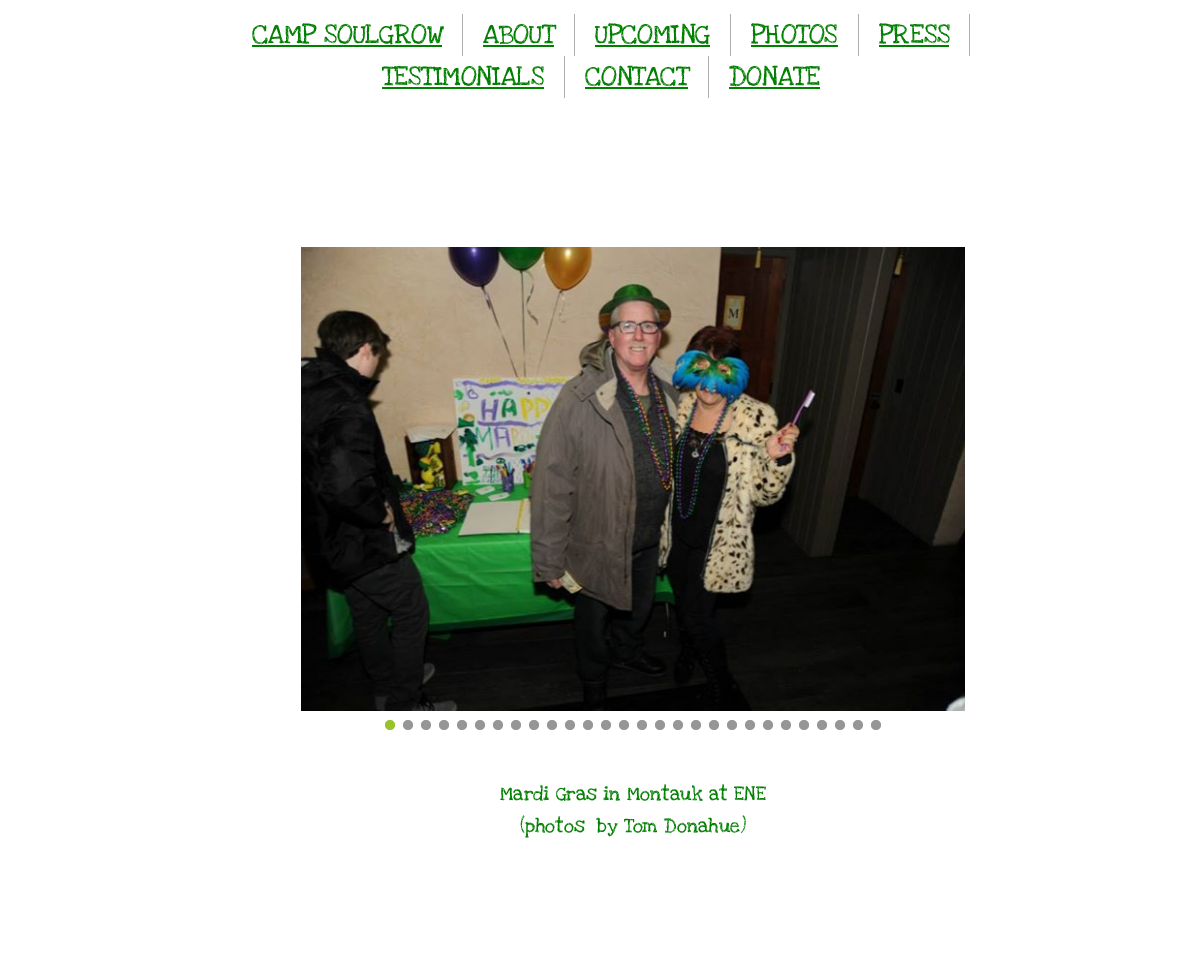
%!PS
<< /PageSize [1202 953] >> setpagedevice
/fl/fill load def
/co { dup -16 bitshift 255 div exch dup -8 bitshift 255 and 255 div exch 255 and 255 div setrgbcolor } def
/fn { [ exch dup neg 0 0 3 -1 roll 0 0 ] selectfont } def
/tx { co fn moveto show } def
/bx { co rectfill } def
/ci { newpath 0 360 arc closepath } def
/im { 5 dict begin { /h /w /y /x /name } { exch def } forall
  gsave x y translate w h scale
  w h 8 [w 0 0 h 0 0] name (r) file false 3 colorimage grestore end } def
0 953 translate 1 -1 scale
4 setmiterlimit
0 0 1202 953 16#FFFFFF bx
462 14 1 42 16#AEAEAE bx
252 45 190 2 16#007F00 bx
574 14 1 42 16#AEAEAE bx
483 45 71 2 16#007F00 bx
730 14 1 42 16#AEAEAE bx
595 45 115 2 16#007F00 bx
858 14 1 42 16#AEAEAE bx
751 45 87 2 16#007F00 bx
969 14 1 42 16#AEAEAE bx
879 45 70 2 16#007F00 bx
564 56 1 42 16#AEAEAE bx
382 87 162 2 16#007F00 bx
708 56 1 42 16#AEAEAE bx
585 87 103 2 16#007F00 bx
729 87 91 2 16#007F00 bx
(media/1.raw) 301 247 664 464 im
16#98C22A co
390 725 5 ci fl
16#969696 co
408 725 5 ci fl
426 725 5 ci fl
444 725 5 ci fl
462 725 5 ci fl
480 725 5 ci fl
498 725 5 ci fl
516 725 5 ci fl
534 725 5 ci fl
552 725 5 ci fl
570 725 5 ci fl
588 725 5 ci fl
606 725 5 ci fl
624 725 5 ci fl
642 725 5 ci fl
660 725 5 ci fl
678 725 5 ci fl
696 725 5 ci fl
714 725 5 ci fl
732 725 5 ci fl
750 725 5 ci fl
768 725 5 ci fl
786 725 5 ci fl
804 725 5 ci fl
822 725 5 ci fl
840 725 5 ci fl
858 725 5 ci fl
876 725 5 ci fl
(CAMP SOULGROW) 252 43 /LoveYaLikeASister-Regular 28 16#007F00 tx
(ABOUT) 483 43 /LoveYaLikeASister-Regular 28 16#007F00 tx
(UPCOMING) 595 43 /LoveYaLikeASister-Regular 28 16#007F00 tx
(PHOTOS) 751 43 /LoveYaLikeASister-Regular 28 16#007F00 tx
(PRESS) 879 43 /LoveYaLikeASister-Regular 28 16#007F00 tx
(TESTIMONIALS) 382 85 /LoveYaLikeASister-Regular 28 16#007F00 tx
(CONTACT) 585 85 /LoveYaLikeASister-Regular 28 16#007F00 tx
(DONATE) 729 85 /LoveYaLikeASister-Regular 28 16#007F00 tx
(Mardi Gras in Montauk at ENE) 500 800 /LoveYaLikeASister-Regular 20 16#007F00 tx
(\(photos  by Tom Donahue\)) 520 832 /LoveYaLikeASister-Regular 20 16#007F00 tx
showpage
